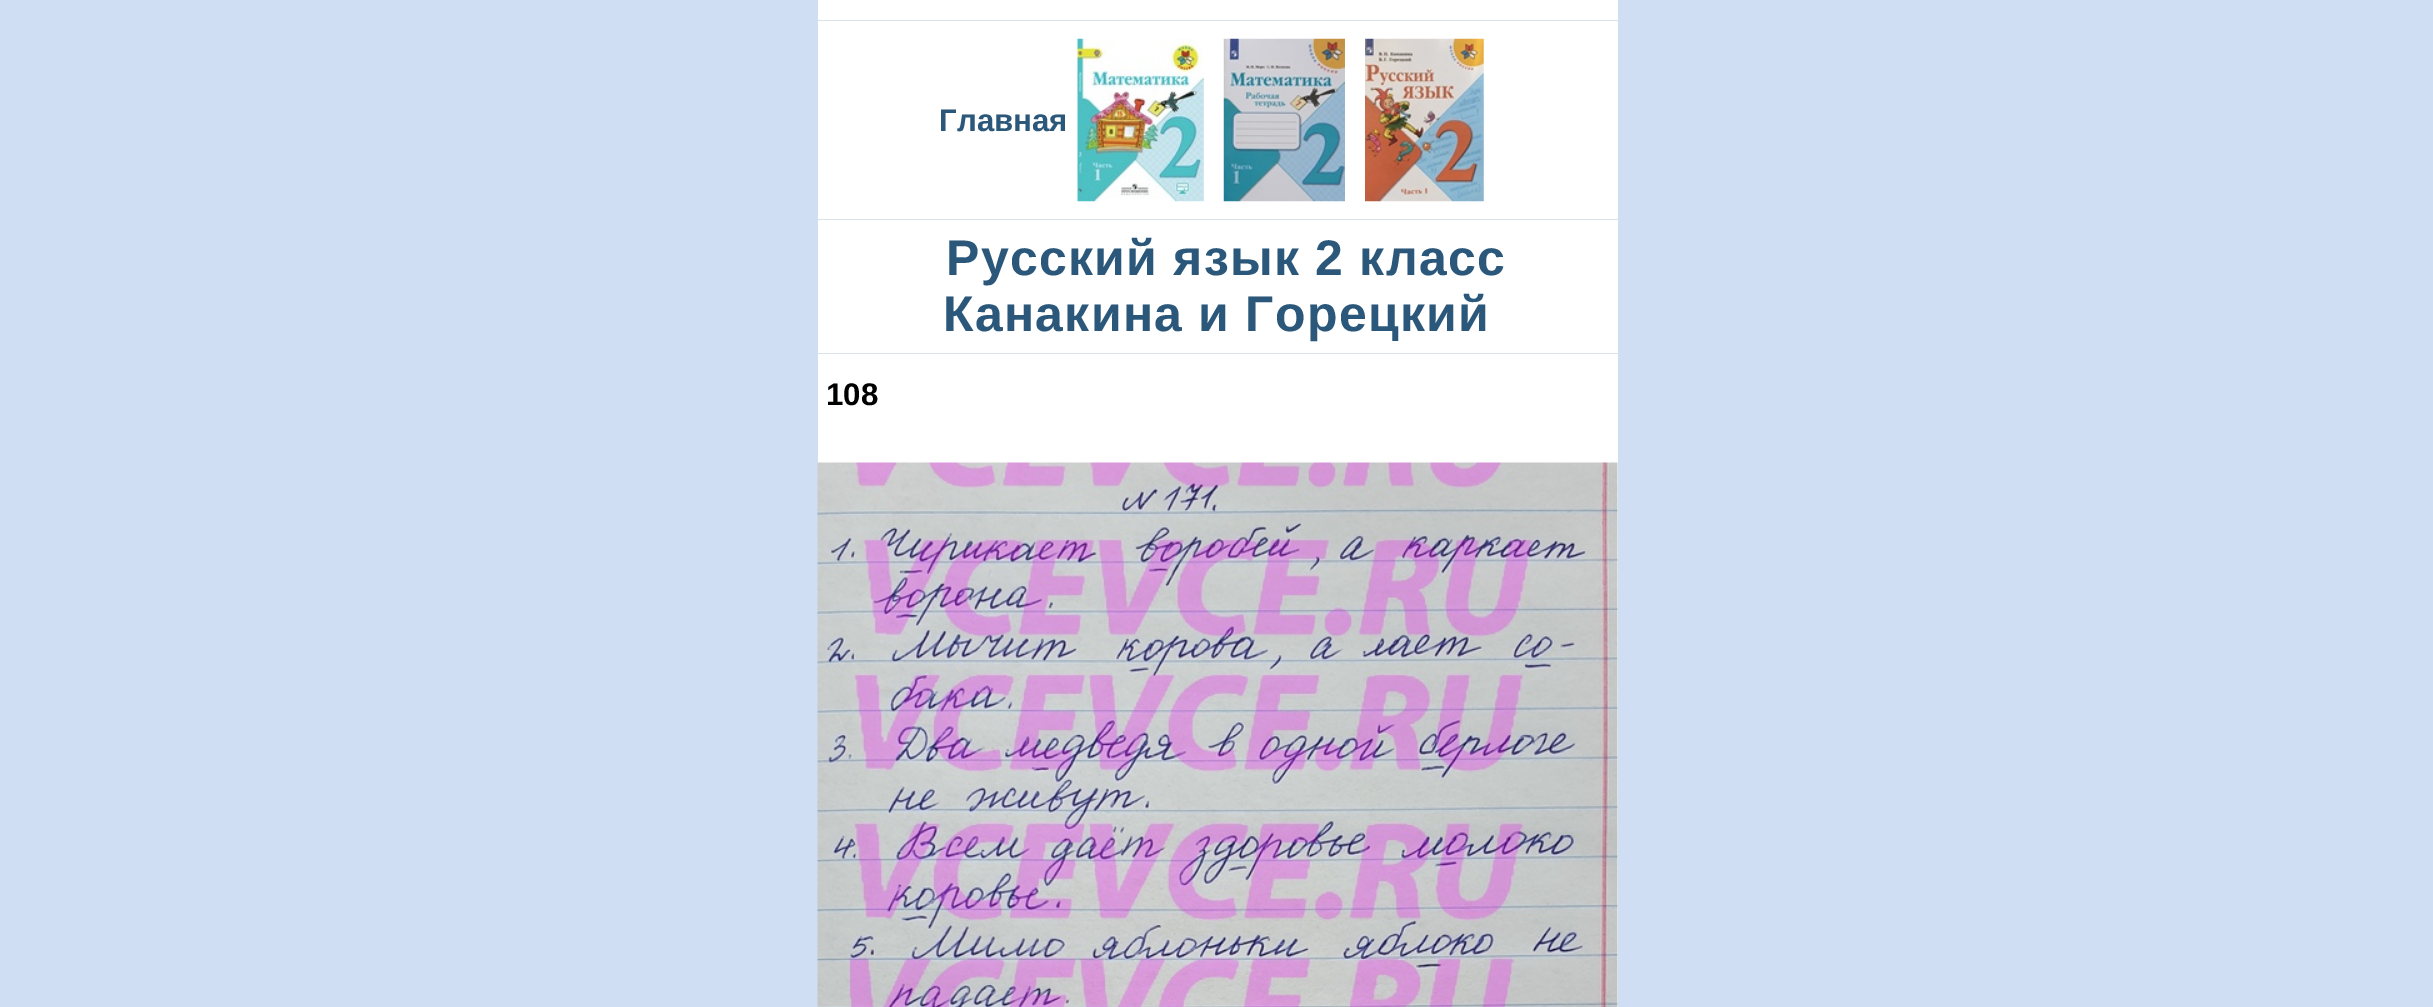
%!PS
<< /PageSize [2433 1007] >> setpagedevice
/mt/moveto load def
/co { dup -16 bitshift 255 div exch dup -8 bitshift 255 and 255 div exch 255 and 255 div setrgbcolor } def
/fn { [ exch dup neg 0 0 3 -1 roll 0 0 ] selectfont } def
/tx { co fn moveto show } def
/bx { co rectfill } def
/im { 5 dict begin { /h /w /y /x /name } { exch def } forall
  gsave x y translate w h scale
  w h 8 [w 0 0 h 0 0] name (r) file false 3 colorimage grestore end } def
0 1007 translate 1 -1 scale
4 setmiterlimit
0 0 2433 1007 16#D0DEF4 bx
818 0 800 20 16#FFFFFF bx
818 20 800 1 16#DAE2E8 bx
818 21 800 198 16#FFFFFF bx
818 219 800 1 16#DAE2E8 bx
(media/1.raw) 1077 38 127 164 im
(media/2.raw) 1223 38 122 164 im
(media/3.raw) 1365 38 119 164 im
818 220 800 133 16#FFFFFF bx
818 353 800 1 16#DAE2E8 bx
818 354 800 653 16#FFFFFF bx
(media/4.raw) 817 462 801 545 im
(Главная) 939 131 /LiberationSans-Bold 31.25 16#2B587A tx
/LiberationSans-Bold 50 fn
946 275 mt 1.25 0 (Русский язык 2 класс) ashow
943 331 mt 1.25 0 (Канакина и Горецкий) ashow
(108) 826 405 /LiberationSans-Bold 31.25 16#000000 tx
showpage
